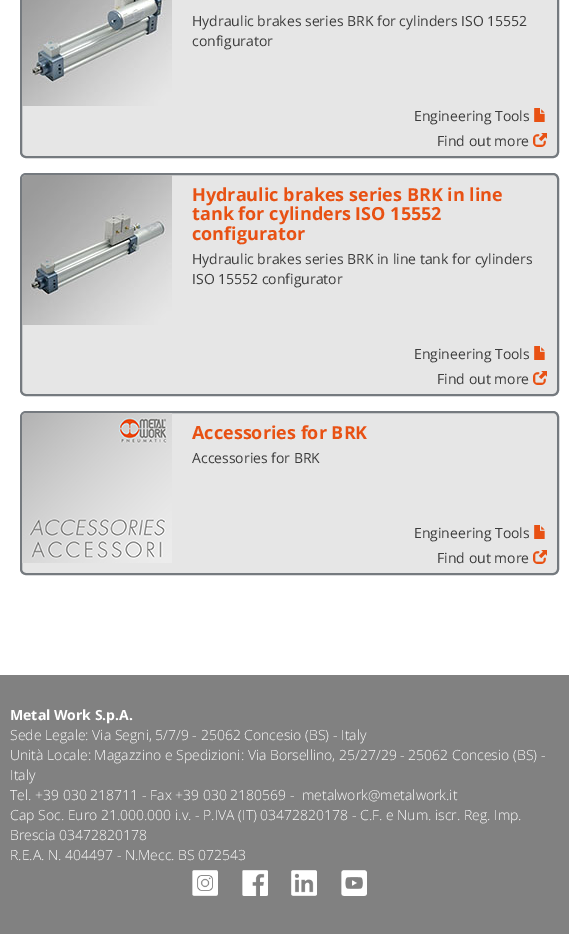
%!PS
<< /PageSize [569 934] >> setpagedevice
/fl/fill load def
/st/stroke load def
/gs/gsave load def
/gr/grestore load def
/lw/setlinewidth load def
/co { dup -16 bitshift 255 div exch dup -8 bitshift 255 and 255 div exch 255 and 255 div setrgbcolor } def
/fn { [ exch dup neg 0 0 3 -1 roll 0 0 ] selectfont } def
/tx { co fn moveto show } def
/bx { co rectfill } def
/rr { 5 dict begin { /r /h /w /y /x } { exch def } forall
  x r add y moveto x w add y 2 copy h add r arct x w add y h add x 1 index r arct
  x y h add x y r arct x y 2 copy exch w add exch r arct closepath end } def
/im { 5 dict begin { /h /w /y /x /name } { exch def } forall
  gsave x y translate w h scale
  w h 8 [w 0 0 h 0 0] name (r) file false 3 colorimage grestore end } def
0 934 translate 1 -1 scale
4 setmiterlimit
0 0 569 934 16#FFFFFF bx
16#E6E6E6 co
21 -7 537 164 5 rr gs fl gr
16#757A7F co
2 lw
st
(media/1.raw) 22 0 150 106 im
(media/2.raw) 534 108 11 14 im
(media/3.raw) 533 133 14 14 im
16#E6E6E6 co
21 174 537 221 5 rr gs fl gr
16#757A7F co
st
(media/4.raw) 22 175 150 150 im
(media/2.raw) 534 346 11 14 im
(media/3.raw) 533 371 14 14 im
16#E6E6E6 co
21 412 537 162 5 rr gs fl gr
16#757A7F co
st
(media/5.raw) 22 413 150 150 im
(media/2.raw) 534 525 11 14 im
(media/3.raw) 533 550 14 14 im
0 675 569 259 16#818181 bx
(media/6.raw) 192 870 26 26 im
(media/7.raw) 242 870 26 26 im
(media/8.raw) 291 870 26 26 im
(media/9.raw) 341 870 26 26 im
(Hydraulic brakes series BRK for cylinders ISO 15552) 192 26 /OpenSans-Regular 14 16#3C3C3C tx
(configurator) 192 46 /OpenSans-Regular 14 16#3C3C3C tx
(Engineering Tools) 414 121 /OpenSans-Regular 14 16#3C3C3C tx
(Find out more) 437 146 /OpenSans-Regular 14 16#3C3C3C tx
(Hydraulic brakes series BRK in line) 192 201 /OpenSans-Bold 18 16#E85113 tx
(tank for cylinders ISO 15552) 192 220 /OpenSans-Bold 18 16#E85113 tx
(configurator) 192 240 /OpenSans-Bold 18 16#E85113 tx
(Hydraulic brakes series BRK in line tank for cylinders) 192 264 /OpenSans-Regular 14 16#3C3C3C tx
(ISO 15552 configurator) 192 284 /OpenSans-Regular 14 16#3C3C3C tx
(Engineering Tools) 414 359 /OpenSans-Regular 14 16#3C3C3C tx
(Find out more) 437 384 /OpenSans-Regular 14 16#3C3C3C tx
(Accessories for BRK) 192 439 /OpenSans-Bold 18 16#E85113 tx
(Accessories for BRK) 192 463 /OpenSans-Regular 14 16#3C3C3C tx
(Engineering Tools) 414 538 /OpenSans-Regular 14 16#3C3C3C tx
(Find out more) 437 563 /OpenSans-Regular 14 16#3C3C3C tx
(Metal Work S.p.A.) 10 720 /OpenSans-Bold 14 16#FFFFFF tx
(Sede Legale: Via Segni, 5/7/9 - 25062 Concesio \(BS\) - Italy) 10 740 /OpenSans-Light 14 16#FFFFFF tx
(Unità Locale: Magazzino e Spedizioni: Via Borsellino, 25/27/29 - 25062 Concesio \(BS\) -) 10 760 /OpenSans-Light 14 16#FFFFFF tx
(Italy) 10 780 /OpenSans-Light 14 16#FFFFFF tx
(Tel. +39 030 218711 - Fax +39 030 2180569 -) 10 800 /OpenSans-Light 14 16#FFFFFF tx
(metalwork@metalwork.it) 302 800 /OpenSans-Light 14 16#FFFFFF tx
(Cap Soc. Euro 21.000.000 i.v. - P.IVA \(IT\) 03472820178 - C.F. e Num. iscr. Reg. Imp.) 10 820 /OpenSans-Light 14 16#FFFFFF tx
(Brescia 03472820178) 10 840 /OpenSans-Light 14 16#FFFFFF tx
(R.E.A. N. 404497 - N.Mecc. BS 072543) 10 860 /OpenSans-Light 14 16#FFFFFF tx
showpage
